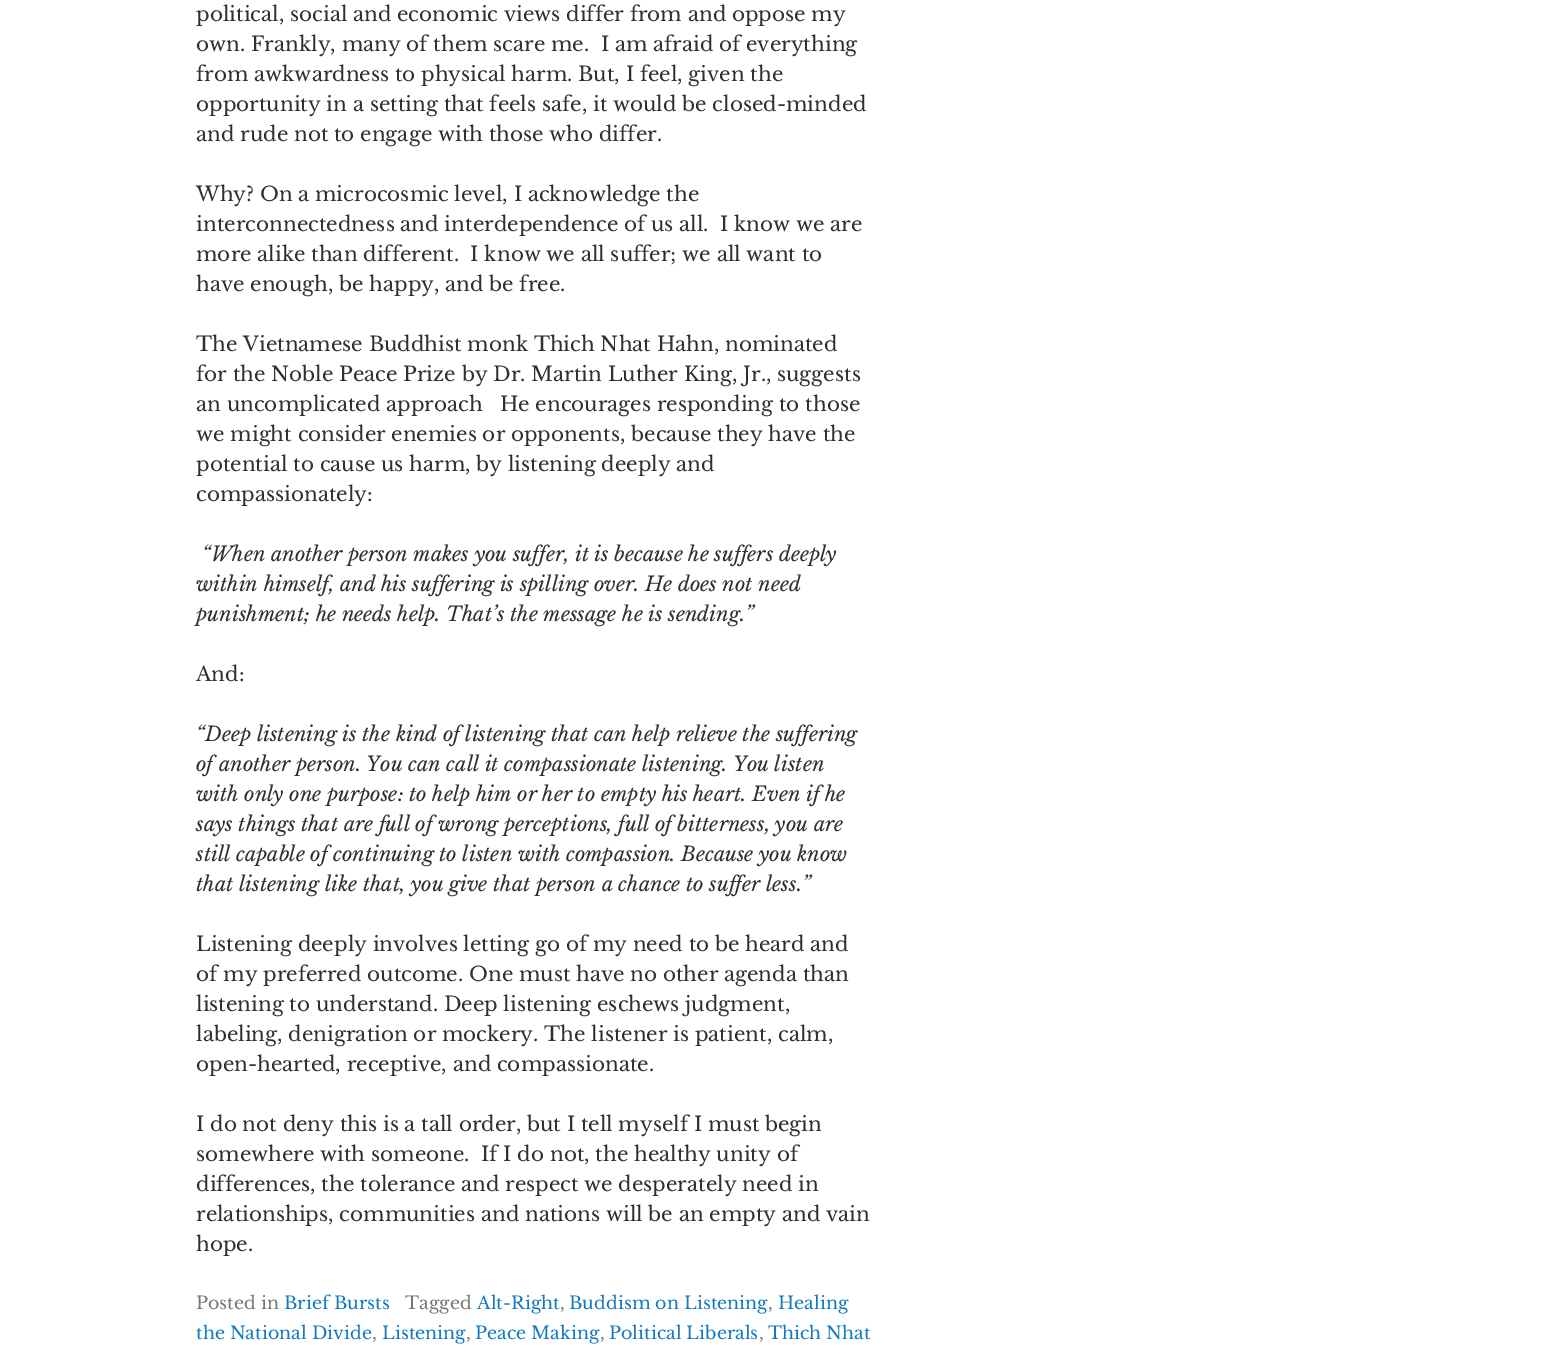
%!PS
<< /PageSize [1555 1362] >> setpagedevice
/co { dup -16 bitshift 255 div exch dup -8 bitshift 255 and 255 div exch 255 and 255 div setrgbcolor } def
/fn { [ exch dup neg 0 0 3 -1 roll 0 0 ] selectfont } def
/tx { co fn moveto show } def
/bx { co rectfill } def
0 1362 translate 1 -1 scale
4 setmiterlimit
0 0 1555 1362 16#FFFFFF bx
(political, social and economic views differ from and oppose my) 196 21 /LibreBaskerville-Regular 20 16#303030 tx
(own. Frankly, many of them scare me.  I am afraid of everything) 196 51 /LibreBaskerville-Regular 20 16#303030 tx
(from awkwardness to physical harm. But, I feel, given the) 196 81 /LibreBaskerville-Regular 20 16#303030 tx
(opportunity in a setting that feels safe, it would be closed-minded) 196 111 /LibreBaskerville-Regular 20 16#303030 tx
(and rude not to engage with those who differ.) 196 141 /LibreBaskerville-Regular 20 16#303030 tx
(Why? On a microcosmic level, I acknowledge the) 196 201 /LibreBaskerville-Regular 20 16#303030 tx
(interconnectedness and interdependence of us all.  I know we are) 196 231 /LibreBaskerville-Regular 20 16#303030 tx
(more alike than different.  I know we all suffer; we all want to) 196 261 /LibreBaskerville-Regular 20 16#303030 tx
(have enough, be happy, and be free.) 196 291 /LibreBaskerville-Regular 20 16#303030 tx
(The Vietnamese Buddhist monk Thich Nhat Hahn, nominated) 196 351 /LibreBaskerville-Regular 20 16#303030 tx
(for the Noble Peace Prize by Dr. Martin Luther King, Jr., suggests) 196 381 /LibreBaskerville-Regular 20 16#303030 tx
(an uncomplicated approach   He encourages responding to those) 196 411 /LibreBaskerville-Regular 20 16#303030 tx
(we might consider enemies or opponents, because they have the) 196 441 /LibreBaskerville-Regular 20 16#303030 tx
(potential to cause us harm, by listening deeply and) 196 471 /LibreBaskerville-Regular 20 16#303030 tx
(compassionately:) 196 501 /LibreBaskerville-Regular 20 16#303030 tx
(“When another person makes you suffer, it is because he suffers deeply) 202 561 /LibreBaskerville-Italic 20 16#303030 tx
(within himself, and his suffering is spilling over. He does not need) 196 591 /LibreBaskerville-Italic 20 16#303030 tx
(punishment; he needs help. That’s the message he is sending.”) 196 621 /LibreBaskerville-Italic 20 16#303030 tx
(And:) 196 681 /LibreBaskerville-Regular 20 16#303030 tx
(“Deep listening is the kind of listening that can help relieve the suffering) 196 741 /LibreBaskerville-Italic 20 16#303030 tx
(of another person. You can call it compassionate listening. You listen) 196 771 /LibreBaskerville-Italic 20 16#303030 tx
(with only one purpose: to help him or her to empty his heart. Even if he) 196 801 /LibreBaskerville-Italic 20 16#303030 tx
(says things that are full of wrong perceptions, full of bitterness, you are) 196 831 /LibreBaskerville-Italic 20 16#303030 tx
(still capable of continuing to listen with compassion. Because you know) 196 861 /LibreBaskerville-Italic 20 16#303030 tx
(that listening like that, you give that person a chance to suffer less.”) 196 891 /LibreBaskerville-Italic 20 16#303030 tx
(Listening deeply involves letting go of my need to be heard and) 196 951 /LibreBaskerville-Regular 20 16#303030 tx
(of my preferred outcome. One must have no other agenda than) 196 981 /LibreBaskerville-Regular 20 16#303030 tx
(listening to understand. Deep listening eschews judgment,) 196 1011 /LibreBaskerville-Regular 20 16#303030 tx
(labeling, denigration or mockery. The listener is patient, calm,) 196 1041 /LibreBaskerville-Regular 20 16#303030 tx
(open-hearted, receptive, and compassionate.) 196 1071 /LibreBaskerville-Regular 20 16#303030 tx
(I do not deny this is a tall order, but I tell myself I must begin) 196 1131 /LibreBaskerville-Regular 20 16#303030 tx
(somewhere with someone.  If I do not, the healthy unity of) 196 1161 /LibreBaskerville-Regular 20 16#303030 tx
(differences, the tolerance and respect we desperately need in) 196 1191 /LibreBaskerville-Regular 20 16#303030 tx
(relationships, communities and nations will be an empty and vain) 196 1221 /LibreBaskerville-Regular 20 16#303030 tx
(hope.) 196 1251 /LibreBaskerville-Regular 20 16#303030 tx
(Posted in) 196 1309 /LibreBaskerville-Regular 17.5 16#757575 tx
(Brief Bursts) 284 1309 /LibreBaskerville-Regular 17.5 16#1279BE tx
(Tagged) 405 1309 /LibreBaskerville-Regular 17.5 16#757575 tx
(Alt-Right) 477 1309 /LibreBaskerville-Regular 17.5 16#1279BE tx
(,) 560 1309 /LibreBaskerville-Regular 17.5 16#757575 tx
(Buddism on Listening) 569 1309 /LibreBaskerville-Regular 17.5 16#1279BE tx
(,) 768 1309 /LibreBaskerville-Regular 17.5 16#757575 tx
(Healing) 778 1309 /LibreBaskerville-Regular 17.5 16#1279BE tx
(the National Divide) 196 1339 /LibreBaskerville-Regular 17.5 16#1279BE tx
(,) 372 1339 /LibreBaskerville-Regular 17.5 16#757575 tx
(Listening) 382 1339 /LibreBaskerville-Regular 17.5 16#1279BE tx
(,) 466 1339 /LibreBaskerville-Regular 17.5 16#757575 tx
(Peace Making) 475 1339 /LibreBaskerville-Regular 17.5 16#1279BE tx
(,) 600 1339 /LibreBaskerville-Regular 17.5 16#757575 tx
(Political Liberals) 609 1339 /LibreBaskerville-Regular 17.5 16#1279BE tx
(,) 759 1339 /LibreBaskerville-Regular 17.5 16#757575 tx
(Thich Nhat) 768 1339 /LibreBaskerville-Regular 17.5 16#1279BE tx
showpage
